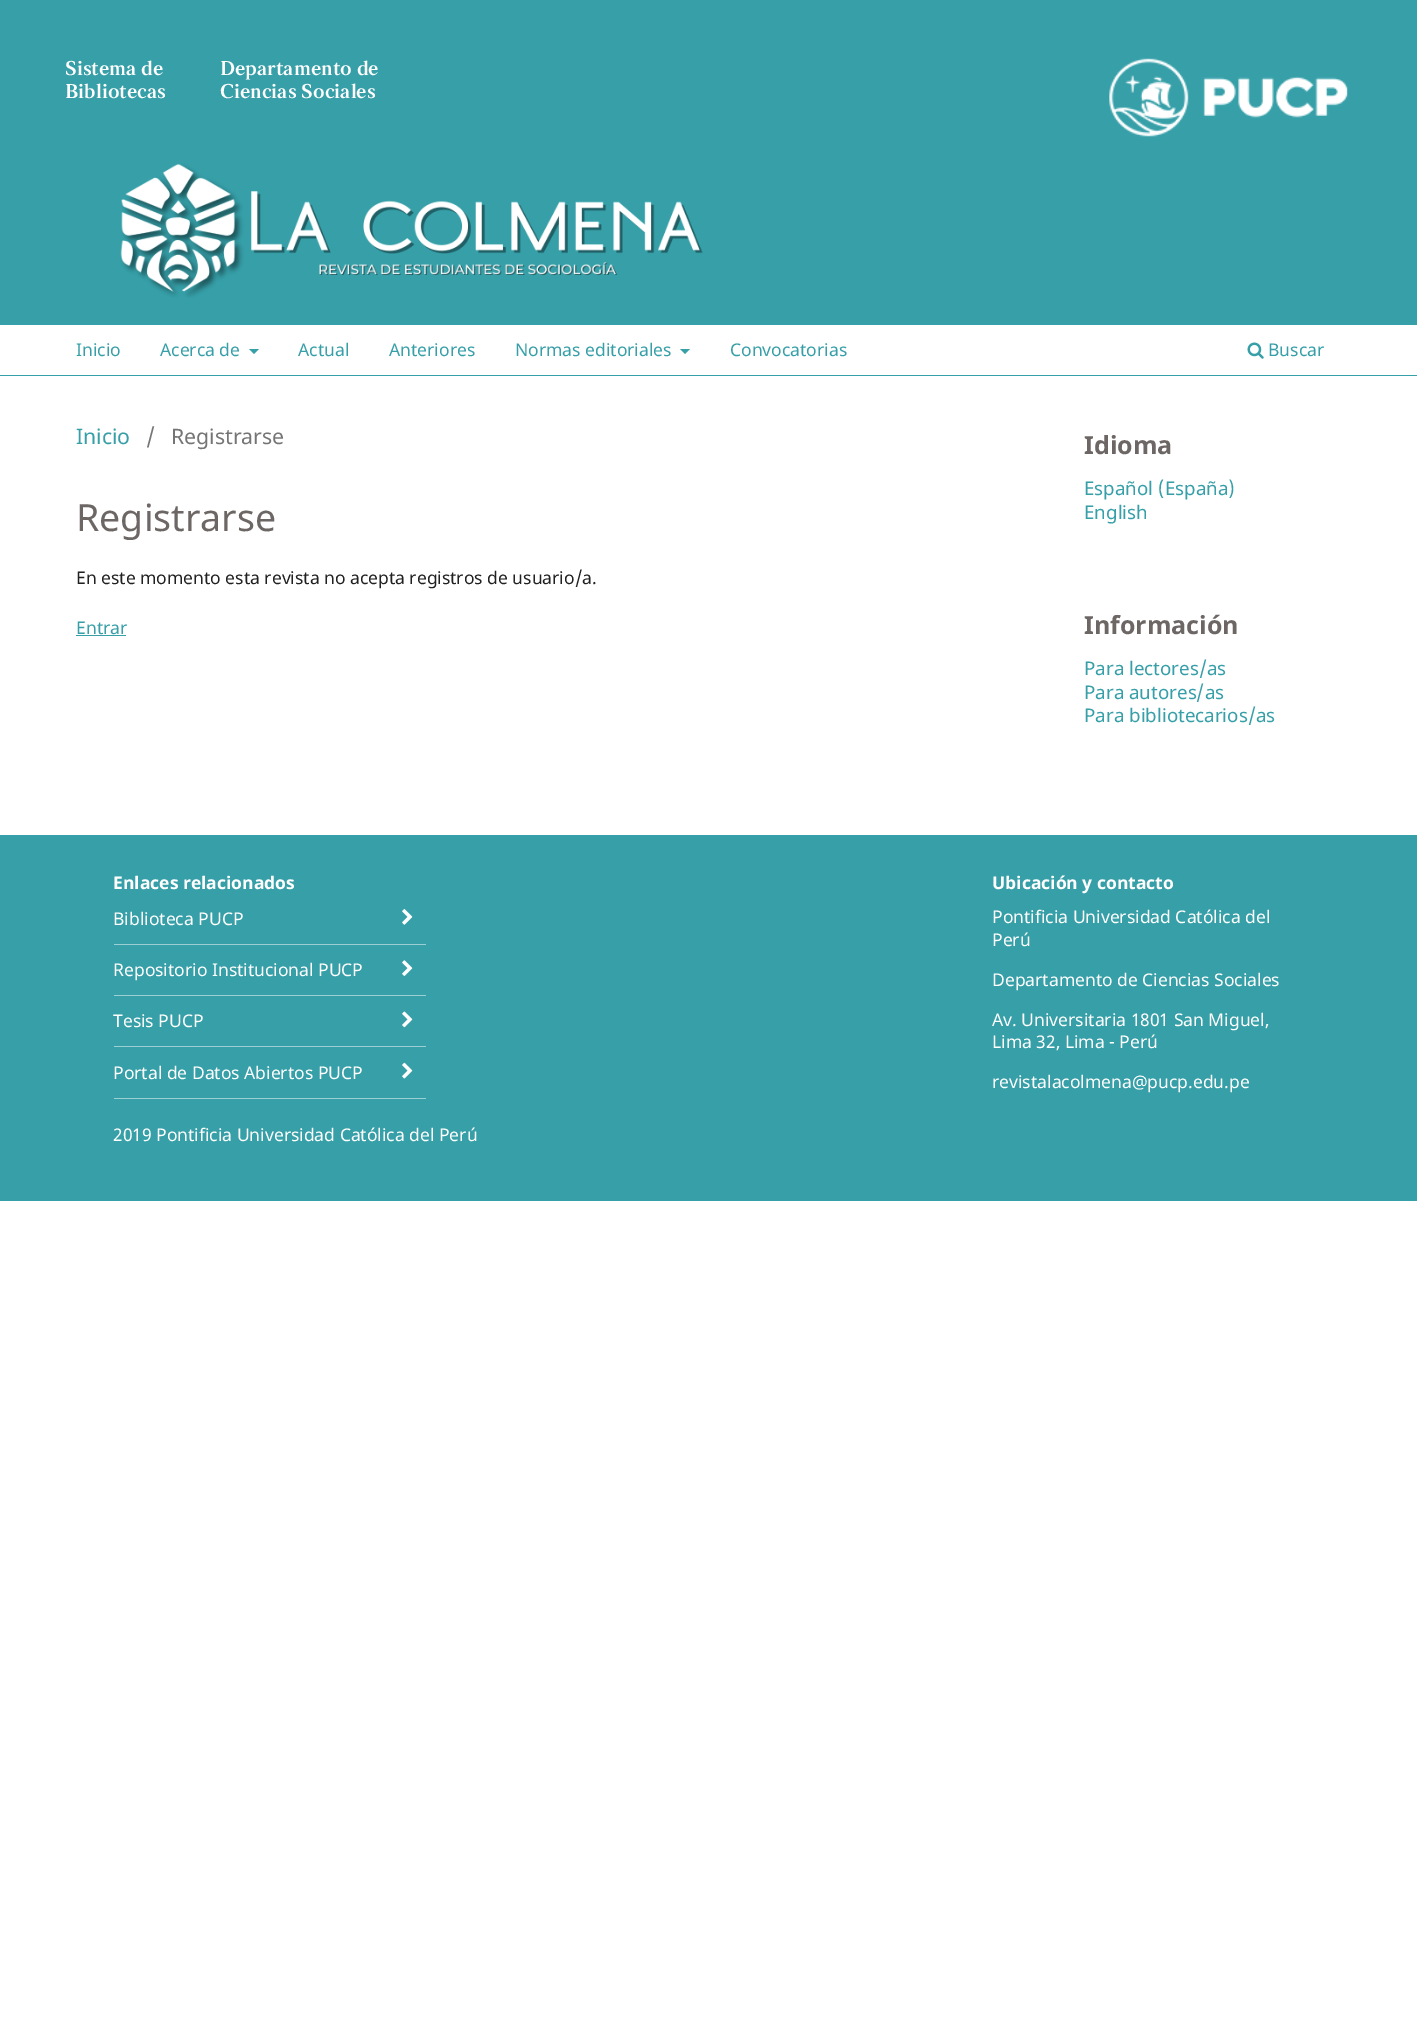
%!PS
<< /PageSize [1417 2033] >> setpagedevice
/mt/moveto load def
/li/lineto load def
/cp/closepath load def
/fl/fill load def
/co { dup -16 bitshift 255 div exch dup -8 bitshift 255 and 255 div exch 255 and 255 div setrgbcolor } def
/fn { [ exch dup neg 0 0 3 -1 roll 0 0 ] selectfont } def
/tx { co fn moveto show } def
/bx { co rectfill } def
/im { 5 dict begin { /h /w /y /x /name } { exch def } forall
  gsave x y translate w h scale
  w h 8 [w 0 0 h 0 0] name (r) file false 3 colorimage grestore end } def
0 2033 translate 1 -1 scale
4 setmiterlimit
0 0 1417 2033 16#FFFFFF bx
0 0 1417 325 16#369FA8 bx
(media/1.raw) 1109 58 239 79 im
(media/2.raw) 120 163 583 135 im
0 375 1417 1 16#369FA8 bx
249 349 mt 259 349 li 254 354 li cp fl
680 349 mt 690 349 li 685 354 li cp fl
(media/3.raw) 1247 342 17 17 im
76 635 50 1 16#369FA8 bx
0 835 1417 366 16#369FA8 bx
114 944 312 1 16#9BCFD4 bx
(media/4.raw) 402 909 11 16 im
114 995 312 1 16#9BCFD4 bx
(media/5.raw) 402 960 11 16 im
114 1046 312 1 16#9BCFD4 bx
(media/6.raw) 402 1011 11 17 im
114 1098 312 1 16#9BCFD4 bx
(media/7.raw) 402 1062 11 17 im
(Sistema de) 65 75 /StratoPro-SemiBold 20 16#FFFFFF tx
(Bibliotecas) 65 98 /StratoPro-SemiBold 20 16#FFFFFF tx
(Departamento de) 220 75 /StratoPro-SemiBold 20 16#FFFFFF tx
(Ciencias Sociales) 220 98 /StratoPro-SemiBold 20 16#FFFFFF tx
(Inicio) 76 356 /NotoSans-Regular 17.5 16#369FA8 tx
(Acerca de) 160 356 /NotoSans-Regular 17.5 16#369FA8 tx
(Actual) 298 356 /NotoSans-Regular 17.5 16#369FA8 tx
(Anteriores) 389 356 /NotoSans-Regular 17.5 16#369FA8 tx
(Normas editoriales) 515 356 /NotoSans-Regular 17.5 16#369FA8 tx
(Convocatorias) 730 356 /NotoSans-Regular 17.5 16#369FA8 tx
(Buscar) 1268 356 /NotoSans-Regular 17.5 16#369FA8 tx
(Inicio) 76 444 /NotoSans-Regular 21.25 16#369FA8 tx
(/) 146 444 /NotoSans-Regular 21.25 16#757575 tx
(Registrarse) 171 444 /NotoSans-Regular 21.25 16#757575 tx
(Registrarse) 76 531 /NotoSans-Regular 37.5 16#6C6664 tx
(En este momento esta revista no acepta registros de usuario/a.) 76 584 /NotoSans-Regular 17.5 16#212121 tx
(Entrar) 76 634 /NotoSans-Regular 17.5 16#369FA8 tx
(Idioma) 1084 454 /NotoSans-Bold 25 16#6C6664 tx
(Español \(España\)) 1084 495 /NotoSans-Regular 18.75 16#369FA8 tx
(English) 1084 519 /NotoSans-Regular 18.75 16#369FA8 tx
(Información) 1084 634 /NotoSans-Bold 25 16#6C6664 tx
(Para lectores/as) 1084 675 /NotoSans-Regular 18.75 16#369FA8 tx
(Para autores/as) 1084 699 /NotoSans-Regular 18.75 16#369FA8 tx
(Para bibliotecarios/as) 1084 722 /NotoSans-Regular 18.75 16#369FA8 tx
(Enlaces relacionados) 113 889 /NotoSans-Bold 17.5 16#FFFFFF tx
(Biblioteca PUCP) 113 925 /NotoSans-Regular 17.5 16#FFFFFF tx
(Repositorio Institucional PUCP) 113 976 /NotoSans-Regular 17.5 16#FFFFFF tx
(Tesis PUCP) 113 1027 /NotoSans-Regular 17.5 16#FFFFFF tx
(Portal de Datos Abiertos PUCP) 113 1079 /NotoSans-Regular 17.5 16#FFFFFF tx
(Ubicación y contacto) 992 889 /NotoSans-Bold 17.5 16#FFFFFF tx
(Pontificia Universidad Católica del) 992 923 /NotoSans-Regular 17.5 16#FFFFFF tx
(Perú) 992 946 /NotoSans-Regular 17.5 16#FFFFFF tx
(Departamento de Ciencias Sociales) 992 986 /NotoSans-Regular 17.5 16#FFFFFF tx
(Av. Universitaria 1801 San Miguel,) 992 1026 /NotoSans-Regular 17.5 16#FFFFFF tx
(Lima 32, Lima - Perú) 992 1048 /NotoSans-Regular 17.5 16#FFFFFF tx
(revistalacolmena@pucp.edu.pe) 992 1088 /NotoSans-Regular 17.5 16#FFFFFF tx
(2019 Pontificia Universidad Católica del Perú) 113 1141 /NotoSans-Regular 17.5 16#FFFFFF tx
showpage
